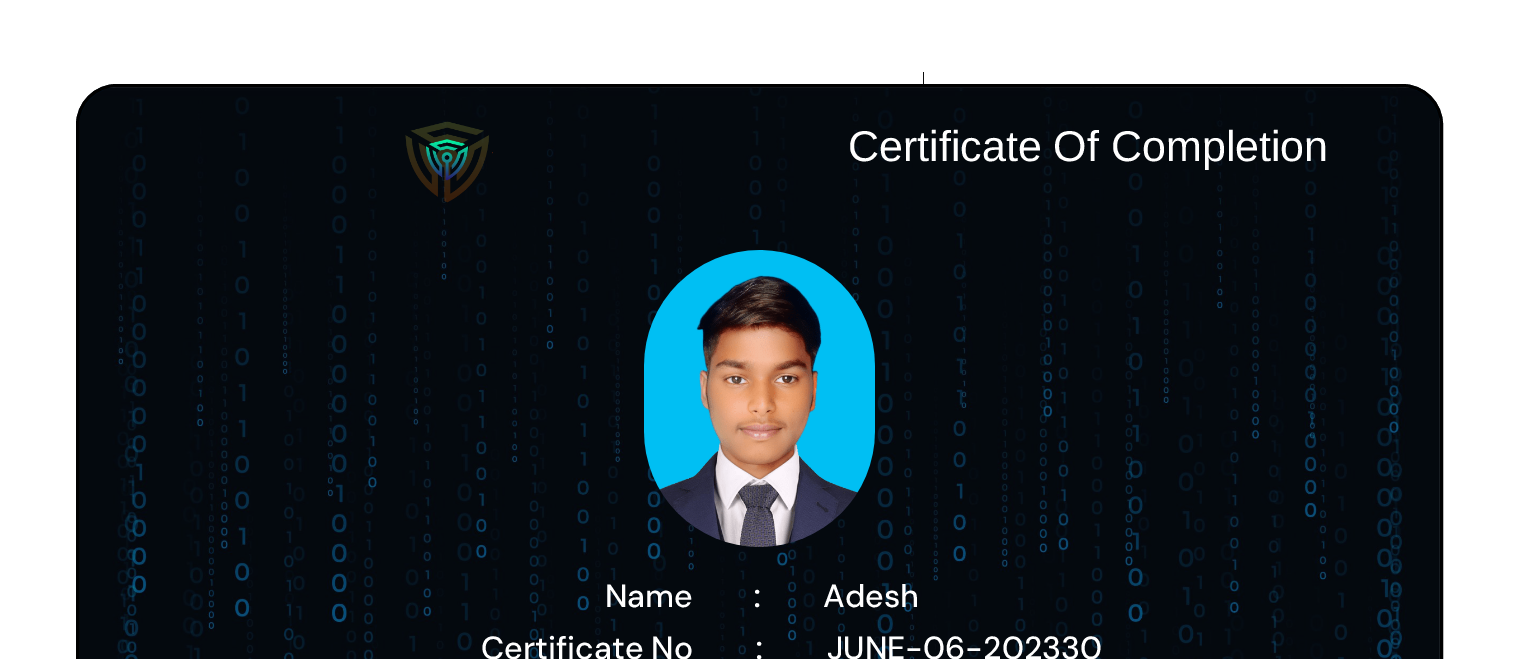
%!PS
<< /PageSize [1519 659] /PageUsesTransparency true >> setpagedevice
/fl/fill load def
/st/stroke load def
/lw/setlinewidth load def
/co { dup -16 bitshift 255 div exch dup -8 bitshift 255 and 255 div exch 255 and 255 div setrgbcolor } def
/fn { [ exch dup neg 0 0 3 -1 roll 0 0 ] selectfont } def
/tx { co fn moveto show } def
/bx { co rectfill } def
/al { dup .setfillconstantalpha .setstrokeconstantalpha } def
/rr { 5 dict begin { /r /h /w /y /x } { exch def } forall
  x r add y moveto x w add y 2 copy h add r arct x w add y h add x 1 index r arct
  x y h add x y r arct x y 2 copy exch w add exch r arct closepath end } def
/im { 5 dict begin { /h /w /y /x /name } { exch def } forall
  gsave x y translate w h scale
  w h 8 [w 0 0 h 0 0] name (r) file false 3 colorimage grestore end } def
0 .pushpdf14devicefilter
0 659 translate 1 -1 scale
4 setmiterlimit
0 0 1519 659 16#FFFFFF bx
923 72 1 12 16#0D0D0D bx
(media/1.raw) 76 84 1367 575 im
16#000000 co
3 lw
77.5 85.5 1364 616 39.5 rr st
0.5 al
16#070404 co
79 87 1361 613 41 rr fl
1 al
(media/2.raw) 405 121 88 82 im
(media/3.raw) 644 250 231 297 im
(Certificate Of Completion) 848 161 /LiberationSans-Regular 43 16#FFFFFF tx
(Name) 605 607 /DMSans-Medium 32 16#FFFFFF tx
(:) 753 607 /Roboto-Medium 32 16#FFFFFF tx
(Adesh) 823 607 /DMSans-Medium 32 16#FFFFFF tx
(Certificate No) 481 659 /DMSans-Medium 32 16#FFFFFF tx
(:) 755 659 /Roboto-Medium 32 16#FFFFFF tx
(JUNE-06-202330) 827 659 /DMSans-Medium 32 16#FFFFFF tx
.poppdf14devicefilter showpage
